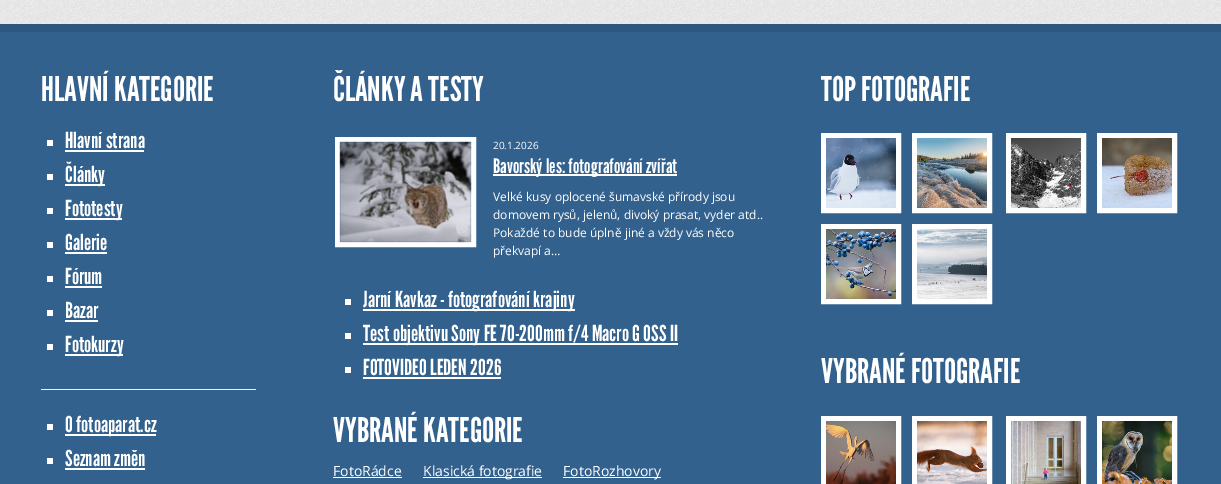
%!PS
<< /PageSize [1221 484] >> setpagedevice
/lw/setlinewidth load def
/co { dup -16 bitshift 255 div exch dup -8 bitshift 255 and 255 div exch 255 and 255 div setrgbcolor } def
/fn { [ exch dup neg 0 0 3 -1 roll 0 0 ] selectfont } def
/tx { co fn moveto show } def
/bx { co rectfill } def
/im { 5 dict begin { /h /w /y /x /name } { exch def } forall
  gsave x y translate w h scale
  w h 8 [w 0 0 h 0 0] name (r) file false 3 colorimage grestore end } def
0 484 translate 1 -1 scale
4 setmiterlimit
0 0 1221 484 16#FFFFFF bx
(media/1.raw) 0 0 1221 24 im
0 32 1221 452 16#32618D bx
0 24 1221 8 16#2D577F bx
47 140 6 6 16#FFFFFF bx
65 150 79 2 16#FFFFFF bx
47 174 6 6 16#FFFFFF bx
65 184 40 2 16#FFFFFF bx
47 208 6 6 16#FFFFFF bx
65 218 57 2 16#FFFFFF bx
47 242 6 6 16#FFFFFF bx
65 252 42 2 16#FFFFFF bx
47 276 6 6 16#FFFFFF bx
65 286 37 2 16#FFFFFF bx
47 310 6 6 16#FFFFFF bx
65 320 33 2 16#FFFFFF bx
47 344 6 6 16#FFFFFF bx
65 354 58 2 16#FFFFFF bx
41 389 215 1 16#F0F1F1 bx
47 424 6 6 16#FFFFFF bx
65 434 91 2 16#FFFFFF bx
47 458 6 6 16#FFFFFF bx
65 468 80 2 16#FFFFFF bx
5 lw
337.5 139.5 136 105 rectstroke
(media/2.raw) 339 141 133 102 im
493 174 184 2 16#FFFFFF bx
345 299 6 6 16#FFFFFF bx
363 309 212 2 16#FFFFFF bx
345 333 6 6 16#FFFFFF bx
363 343 315 2 16#FFFFFF bx
345 367 6 6 16#FFFFFF bx
363 377 138 2 16#FFFFFF bx
333 477 69 1 16#FFFFFF bx
423 477 119 1 16#FFFFFF bx
563 477 98 1 16#FFFFFF bx
823.5 135.5 75 75 rectstroke
(media/3.raw) 826 138 70 70 im
914.5 135.5 75 75 rectstroke
(media/4.raw) 917 138 70 70 im
1008.5 135.5 75 75 rectstroke
(media/5.raw) 1011 138 70 70 im
1099.5 135.5 75 75 rectstroke
(media/6.raw) 1102 138 70 70 im
823.5 226.5 75 75 rectstroke
(media/7.raw) 826 229 70 70 im
914.5 226.5 75 75 rectstroke
(media/8.raw) 917 229 70 70 im
823.5 418.5 75 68 rectstroke
(media/9.raw) 826 421 70 63 im
914.5 418.5 75 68 rectstroke
(media/10.raw) 917 421 70 63 im
1008.5 418.5 75 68 rectstroke
(media/11.raw) 1011 421 70 63 im
1099.5 418.5 75 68 rectstroke
(media/12.raw) 1102 421 70 63 im
(HLAVNÍ KATEGORIE) 41 101 /LeagueGothic-Regular 34 16#FFFFFF tx
(Hlavní strana) 65 148 /LeagueGothic-Regular 22 16#FFFFFF tx
(Články) 65 182 /LeagueGothic-Regular 22 16#FFFFFF tx
(Fototesty) 65 216 /LeagueGothic-Regular 22 16#FFFFFF tx
(Galerie) 65 250 /LeagueGothic-Regular 22 16#FFFFFF tx
(Fórum) 65 284 /LeagueGothic-Regular 22 16#FFFFFF tx
(Bazar) 65 318 /LeagueGothic-Regular 22 16#FFFFFF tx
(Fotokurzy) 65 352 /LeagueGothic-Regular 22 16#FFFFFF tx
(O fotoaparat.cz) 65 432 /LeagueGothic-Regular 22 16#FFFFFF tx
(Seznam změn) 65 466 /LeagueGothic-Regular 22 16#FFFFFF tx
(ČLÁNKY A TESTY) 333 101 /LeagueGothic-Regular 34 16#FFFFFF tx
(20.1.2026) 493 149 /OpenSans-Regular 10 16#FFFFFF tx
(Bavorský les: fotografování zvířat) 493 173 /LeagueGothic-Regular 20 16#FFFFFF tx
(Velké kusy oplocené šumavské přírody jsou) 493 201 /OpenSans-Regular 12 16#FFFFFF tx
(domovem rysů, jelenů, divoký prasat, vyder atd..) 493 219 /OpenSans-Regular 12 16#FFFFFF tx
(Pokaždé to bude úplně jiné a vždy vás něco) 493 237 /OpenSans-Regular 12 16#FFFFFF tx
(překvapí a…) 493 255 /OpenSans-Regular 12 16#FFFFFF tx
(Jarní Kavkaz - fotografování krajiny) 363 307 /LeagueGothic-Regular 22 16#FFFFFF tx
(Test objektivu Sony FE 70-200mm f/4 Macro G OSS II) 363 341 /LeagueGothic-Regular 22 16#FFFFFF tx
(FOTOVIDEO LEDEN 2026) 363 375 /LeagueGothic-Regular 22 16#FFFFFF tx
(VYBRANÉ KATEGORIE) 333 442 /LeagueGothic-Regular 34 16#FFFFFF tx
(FotoRádce) 333 476 /OpenSans-Regular 14 16#FFFFFF tx
(Klasická fotografie) 423 476 /OpenSans-Regular 14 16#FFFFFF tx
(FotoRozhovory) 563 476 /OpenSans-Regular 14 16#FFFFFF tx
(TOP FOTOGRAFIE) 821 101 /LeagueGothic-Regular 34 16#FFFFFF tx
(VYBRANÉ FOTOGRAFIE) 821 383 /LeagueGothic-Regular 34 16#FFFFFF tx
showpage
